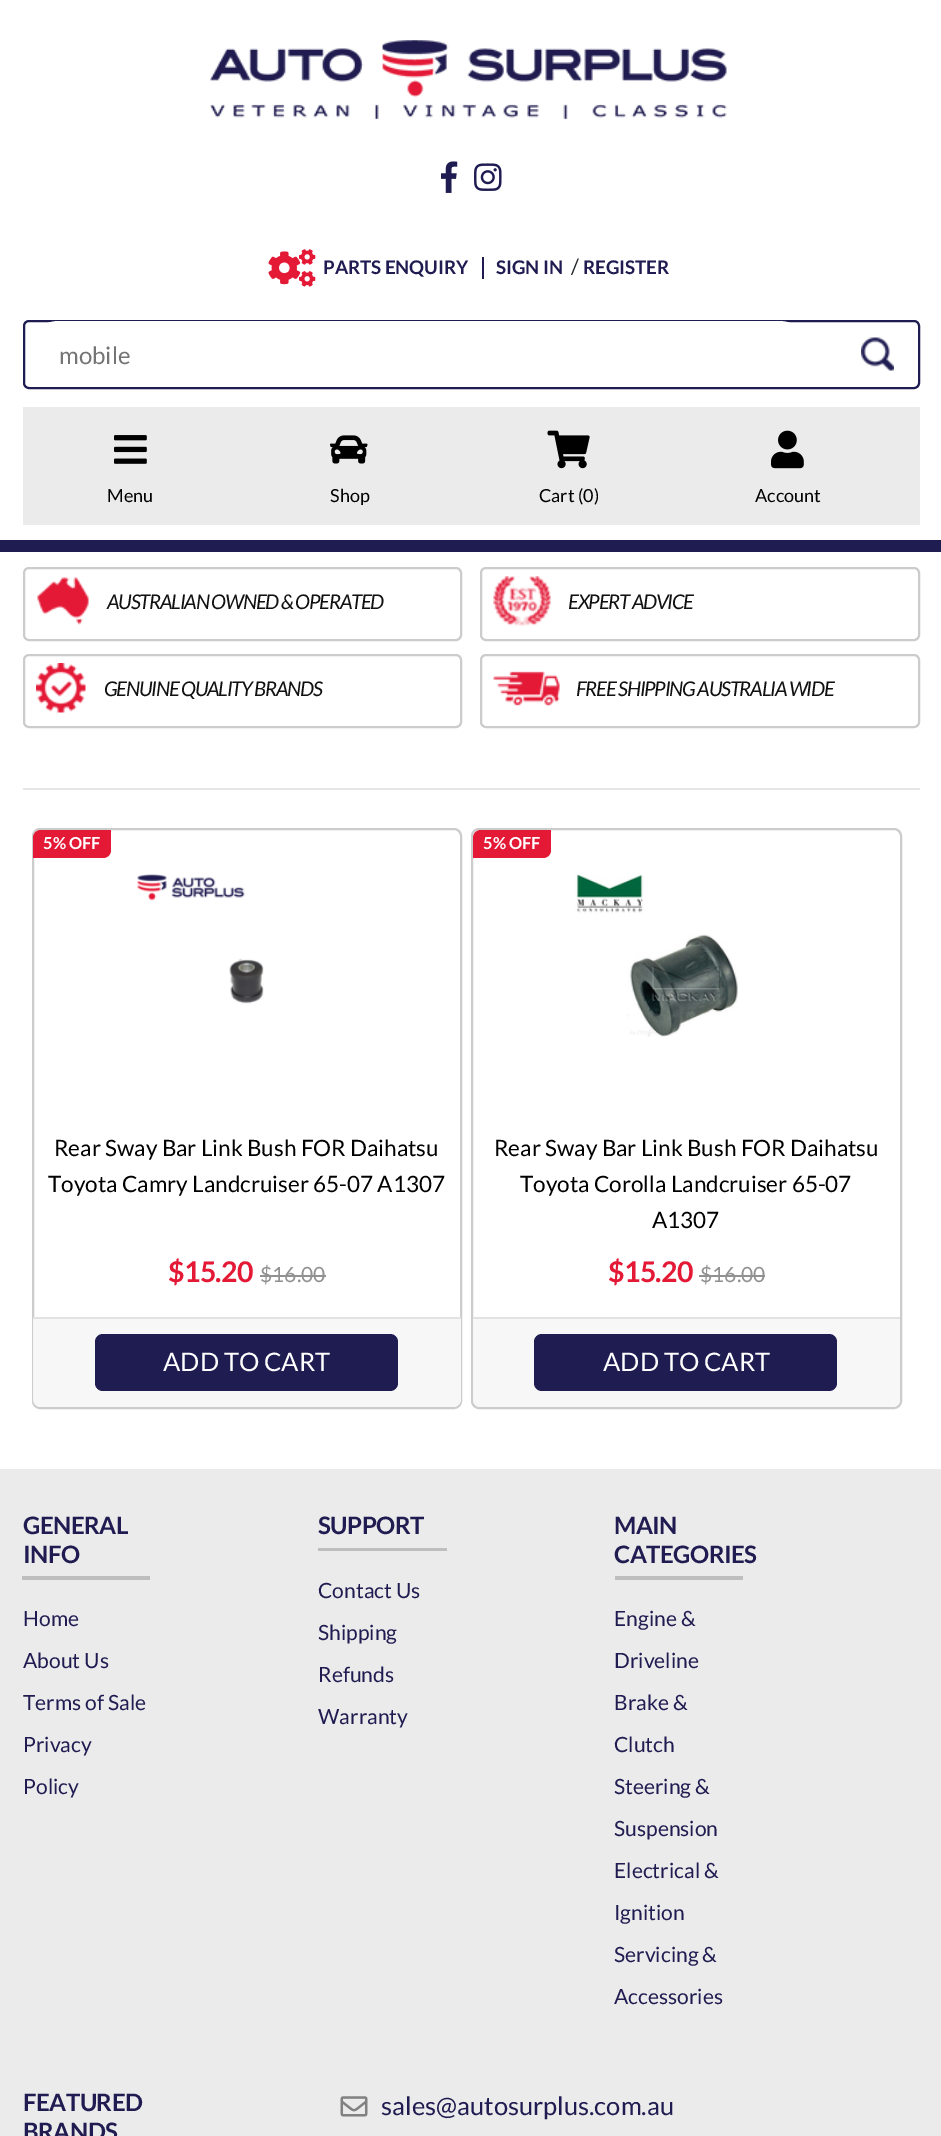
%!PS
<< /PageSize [941 2136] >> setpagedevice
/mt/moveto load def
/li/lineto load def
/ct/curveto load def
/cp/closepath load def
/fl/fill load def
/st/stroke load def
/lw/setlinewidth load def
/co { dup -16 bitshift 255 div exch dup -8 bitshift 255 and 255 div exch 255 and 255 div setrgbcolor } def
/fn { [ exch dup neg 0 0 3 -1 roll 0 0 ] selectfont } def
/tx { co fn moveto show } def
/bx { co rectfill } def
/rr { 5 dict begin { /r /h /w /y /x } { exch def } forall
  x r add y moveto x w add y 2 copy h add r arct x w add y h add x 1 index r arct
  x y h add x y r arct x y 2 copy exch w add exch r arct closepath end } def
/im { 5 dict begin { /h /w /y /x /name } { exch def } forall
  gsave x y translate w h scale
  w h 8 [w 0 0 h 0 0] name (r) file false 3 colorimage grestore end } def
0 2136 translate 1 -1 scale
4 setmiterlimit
0 0 941 2136 16#FFFFFF bx
(media/1.raw) 210 40 517 80 im
(media/2.raw) 441 161 17 32 im
(media/3.raw) 474 163 28 28 im
482 257 2 22 16#201C51 bx
(media/4.raw) 268 249 48 38 im
16#1F1C51 co
2 lw
24 321 895 67 5 rr st
16#FFFFFF co
26 321 786 66 33 rr fl
(media/5.raw) 861 337 33 34 im
23 407 897 118 16#EBEBEB bx
(media/6.raw) 114 435 33 29 im
(media/7.raw) 330 435 38 29 im
(media/8.raw) 547 430 43 39 im
(media/9.raw) 771 430 33 39 im
0 540 941 12 16#1F1C51 bx
16#CCCCCC co
24 568 437 72 5 rr st
(media/10.raw) 37 577 52 48 im
481 568 438 72 5 rr st
(media/11.raw) 493 576 58 50 im
24 655 437 72 5 rr st
(media/12.raw) 36 663 50 50 im
481 655 438 72 5 rr st
(media/13.raw) 493 671 67 35 im
23 788 897 2 16#E6E6E6 bx
16#CCCCCC co
33 829 428 579 7 rr st
16#E31936 co
41 830 mt 111 830 li 111 850 li 111 854.5 107.5 858 103 858 ct 33 858 li 33 838 li 33 833.5 36.5 830 41 830 ct cp fl
260 1275 66 2 16#919191 bx
(media/14.raw) 137 874 127 130 im
16#F7F7F7 co
33 1317 mt 461 1317 li 461 1399 li 461 1403.5 457.5 1407 453 1407 ct 41 1407 li 36.5 1407 33 1403.5 33 1399 ct cp fl
33 1317 428 2 16#E2E2E2 bx
16#1F1C51 co
95 1334 303 57 8 rr fl
16#CCCCCC co
472 829 429 579 7 rr st
16#E31936 co
481 830 mt 551 830 li 551 850 li 551 854.5 547.5 858 543 858 ct 473 858 li 473 838 li 473 833.5 476.5 830 481 830 ct cp fl
699 1275 66 2 16#919191 bx
(media/15.raw) 575 873 163 164 im
16#F7F7F7 co
473 1317 mt 900 1317 li 900 1399 li 900 1403.5 896.5 1407 892 1407 ct 481 1407 li 476.5 1407 473 1403.5 473 1399 ct cp fl
473 1317 427 2 16#E2E2E2 bx
16#1F1C51 co
534 1334 303 57 8 rr fl
0 1469 941 667 16#EBEBEB bx
22 1576 128 4 16#BEBEBE bx
318 1548 129 3 16#BEBEBE bx
615 1576 128 4 16#BEBEBE bx
(media/16.raw) 340 2096 28 21 im
/Lato-Bold 18.75 fn
16#201C51 co
323 274 mt -.1 0 (PARTS ENQUIRY) ashow
496 274 mt -.1 0 (SIGN IN) ashow
(/) 571 274 /Lato-Regular 21 16#212529 tx
/Lato-Bold 18.75 fn
16#201C51 co
583 274 mt -.1 0 (REGISTER) ashow
(mobile) 59 364 /Lato-Regular 24 16#757575 tx
(Menu) 107 502 /Lato-Regular 18 16#000000 tx
(Shop) 330 502 /Lato-Regular 18 16#000000 tx
(Cart \(0\)) 539 502 /Lato-Regular 18 16#000000 tx
(Account) 755 502 /Lato-Regular 18 16#000000 tx
/Lato-Italic 20.25 fn
16#111111 co
107 609 mt -1.2 0 (AUSTRALIAN OWNED & OPERATED) ashow
568 609 mt -1.2 0 (EXPERT ADVICE) ashow
104 696 mt -1.2 0 (GENUINE QUALITY BRANDS) ashow
576 696 mt -1.2 0 (FREE SHIPPING AUSTRALIA WIDE) ashow
(5% OFF) 43 849 /Lato-Bold 16.5 16#FFFFFF tx
/Lato-Bold 28.5 fn
16#E31936 co
168 1282 mt -.75 0 ($15.20) ashow
($16.00) 260 1282 /Lato-Regular 21 16#919191 tx
(Rear Sway Bar Link Bush FOR Daihatsu) 54 1156 /Lato-Regular 22.5 16#000000 tx
(Toyota Camry Landcruiser 65-07 A1307) 48 1192 /Lato-Regular 22.5 16#000000 tx
(ADD TO CART) 163 1371 /Lato-Regular 25.5 16#FFFFFF tx
(5% OFF) 483 849 /Lato-Bold 16.5 16#FFFFFF tx
/Lato-Bold 28.5 fn
16#E31936 co
608 1282 mt -.75 0 ($15.20) ashow
($16.00) 700 1282 /Lato-Regular 21 16#919191 tx
(Rear Sway Bar Link Bush FOR Daihatsu) 494 1156 /Lato-Regular 22.5 16#000000 tx
(Toyota Corolla Landcruiser 65-07) 520 1192 /Lato-Regular 22.5 16#000000 tx
(A1307) 652 1228 /Lato-Regular 22.5 16#000000 tx
(ADD TO CART) 603 1371 /Lato-Regular 25.5 16#FFFFFF tx
/Lato-Bold 24 fn
16#201C51 co
23 1534 mt -.5 0 (GENERAL) ashow
23 1563 mt -.5 0 (INFO) ashow
(Home) 23 1626 /Lato-Regular 21 16#201C51 tx
(About Us) 23 1668 /Lato-Regular 21 16#201C51 tx
(Terms of Sale) 23 1710 /Lato-Regular 21 16#201C51 tx
(Privacy) 23 1752 /Lato-Regular 21 16#201C51 tx
(Policy) 23 1794 /Lato-Regular 21 16#201C51 tx
/Lato-Bold 24 fn
318 1534 mt -.5 0 (SUPPORT) ashow
(Contact Us) 318 1598 /Lato-Regular 21 16#201C51 tx
(Shipping) 318 1640 /Lato-Regular 21 16#201C51 tx
(Refunds) 318 1682 /Lato-Regular 21 16#201C51 tx
(Warranty) 318 1724 /Lato-Regular 21 16#201C51 tx
/Lato-Bold 24 fn
614 1534 mt -.5 0 (MAIN) ashow
614 1563 mt -.5 0 (CATEGORIES) ashow
(Engine &) 614 1626 /Lato-Regular 21 16#201C51 tx
(Driveline) 614 1668 /Lato-Regular 21 16#201C51 tx
(Brake &) 614 1710 /Lato-Regular 21 16#201C51 tx
(Clutch) 614 1752 /Lato-Regular 21 16#201C51 tx
(Steering &) 614 1794 /Lato-Regular 21 16#201C51 tx
(Suspension) 614 1836 /Lato-Regular 21 16#201C51 tx
(Electrical &) 614 1878 /Lato-Regular 21 16#201C51 tx
(Ignition) 614 1920 /Lato-Regular 21 16#201C51 tx
(Servicing &) 614 1962 /Lato-Regular 21 16#201C51 tx
(Accessories) 614 2004 /Lato-Regular 21 16#201C51 tx
/Lato-Bold 24 fn
23 2111 mt -.5 0 (FEATURED) ashow
23 2140 mt -.5 0 (BRANDS) ashow
(sales@autosurplus.com.au) 381 2115 /Lato-Regular 25.5 16#201C51 tx
showpage
